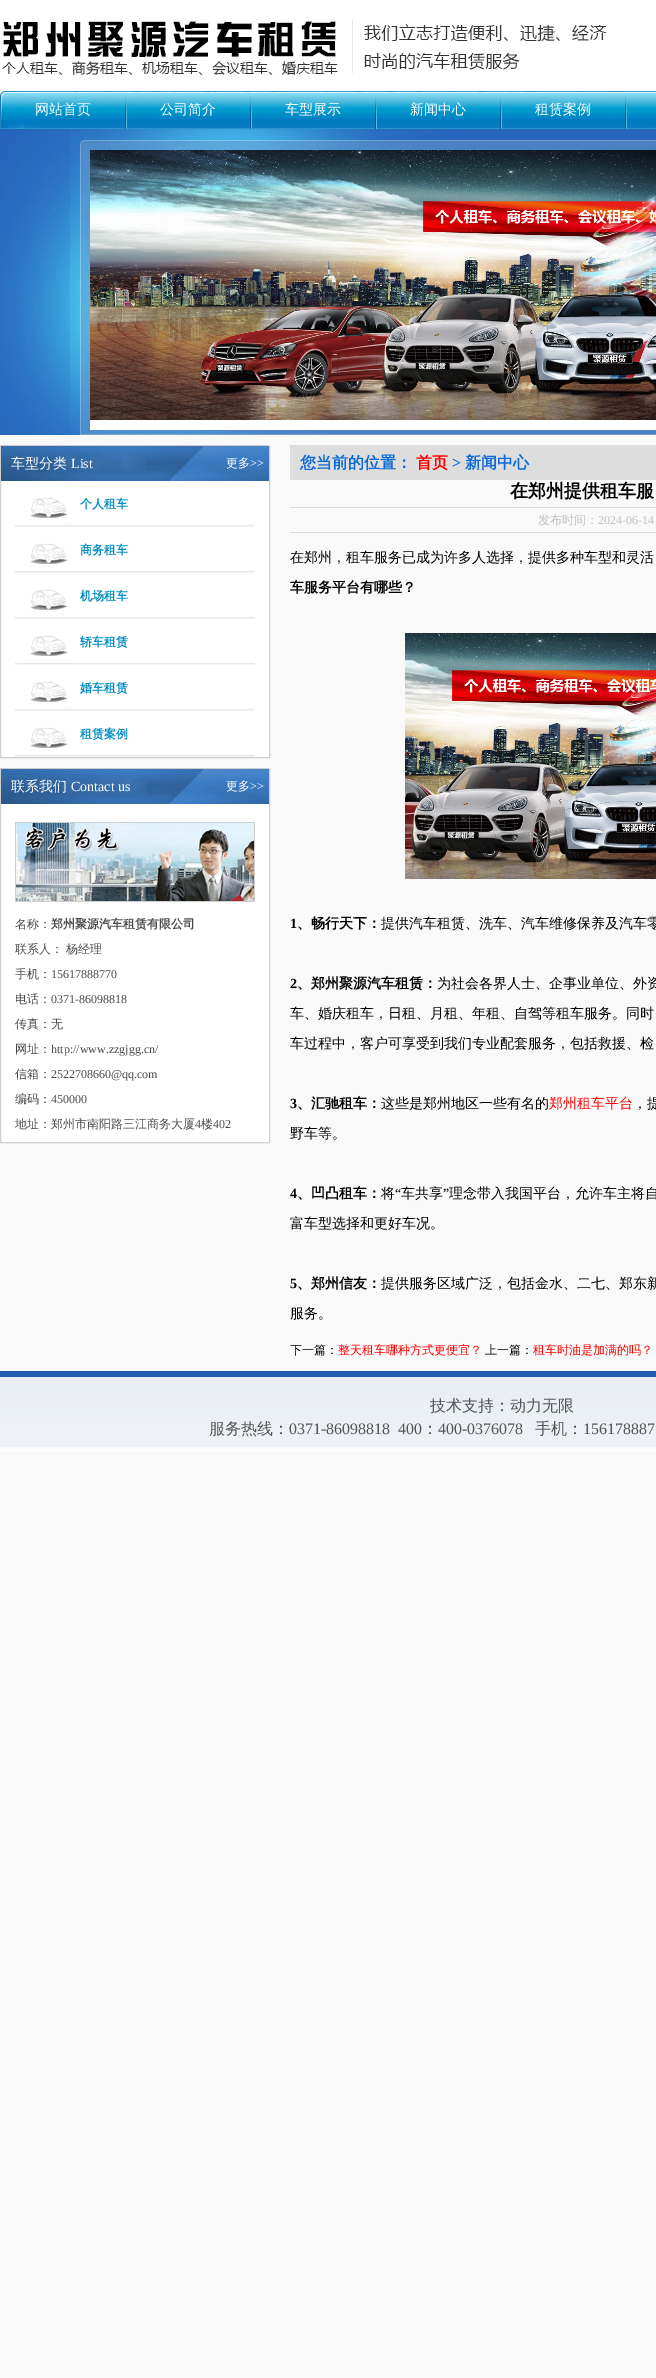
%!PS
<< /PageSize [656 2378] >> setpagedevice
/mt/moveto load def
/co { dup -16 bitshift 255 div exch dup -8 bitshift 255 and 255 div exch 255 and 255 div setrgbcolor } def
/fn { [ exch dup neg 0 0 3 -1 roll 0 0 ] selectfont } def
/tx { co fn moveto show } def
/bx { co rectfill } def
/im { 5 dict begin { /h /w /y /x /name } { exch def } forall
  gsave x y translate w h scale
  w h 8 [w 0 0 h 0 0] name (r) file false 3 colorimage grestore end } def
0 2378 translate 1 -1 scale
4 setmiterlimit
0 0 656 2378 16#F9F9F9 bx
(media/1.raw) 0 0 656 20 im
(media/2.raw) 0 20 656 71 im
(media/3.raw) 0 91 656 38 im
(media/4.raw) 125 91 2 38 im
(media/4.raw) 250 91 2 38 im
(media/5.raw) 375 92 2 37 im
(media/4.raw) 500 91 2 38 im
(media/4.raw) 625 91 2 38 im
(media/6.raw) 0 129 656 306 im
(media/7.raw) 90 150 566 270 im
1 481 268 276 16#FFFFFF bx
16#CFCFCF co
.5 445.5 269 312 rectstroke
(media/8.raw) 1 446 268 35 im
(media/9.raw) 15 497 240 30 im
(media/9.raw) 15 543 240 30 im
(media/9.raw) 15 589 240 30 im
(media/9.raw) 15 635 240 30 im
(media/9.raw) 15 681 240 30 im
(media/9.raw) 15 727 240 30 im
1 804 268 338 16#FFFFFF bx
16#CFCFCF co
.5 768.5 269 374 rectstroke
(media/8.raw) 1 769 268 35 im
(media/10.raw) 15 822 240 80 im
290 445 366 35 16#DDDDDD bx
290 507 366 1 16#DDDDDD bx
290 532 366 1 16#DDDDDD bx
(media/11.raw) 405 633 251 246 im
(media/12.raw) 0 1371 656 80 im
(网站首页) 35 114 /WenQuanYiZenHei-Medium 14 16#FFFFFF tx
(公司简介) 160 114 /WenQuanYiZenHei-Medium 14 16#FFFFFF tx
(车型展示) 285 114 /WenQuanYiZenHei-Medium 14 16#FFFFFF tx
(新闻中心) 410 114 /WenQuanYiZenHei-Medium 14 16#FFFFFF tx
(租赁案例) 535 114 /WenQuanYiZenHei-Medium 14 16#FFFFFF tx
(车型分类) 11 468 /WenQuanYiZenHei-Medium 14 16#FFFFFF tx
(List) 71 468 /LiberationSerif-Regular 14 16#FFFFFF tx
(更多) 226 467 /WenQuanYiZenHei-Medium 12 16#FFFFFF tx
(>>) 250 467 /LiberationSerif-Regular 12 16#FFFFFF tx
(个人租车) 80 508 /WenQuanYiZenHei-Bold 12 16#008CC4 tx
(商务租车) 80 554 /WenQuanYiZenHei-Bold 12 16#008CC4 tx
(机场租车) 80 600 /WenQuanYiZenHei-Bold 12 16#008CC4 tx
(轿车租赁) 80 646 /WenQuanYiZenHei-Bold 12 16#008CC4 tx
(婚车租赁) 80 692 /WenQuanYiZenHei-Bold 12 16#008CC4 tx
(租赁案例) 80 738 /WenQuanYiZenHei-Bold 12 16#008CC4 tx
(联系我们) 11 791 /WenQuanYiZenHei-Medium 14 16#FFFFFF tx
(Contact us) 71 791 /LiberationSerif-Regular 14 16#FFFFFF tx
(更多) 226 790 /WenQuanYiZenHei-Medium 12 16#FFFFFF tx
(>>) 250 790 /LiberationSerif-Regular 12 16#FFFFFF tx
(名称：) 15 928 /WenQuanYiZenHei-Medium 12 16#4A4A4A tx
(郑州聚源汽车租赁有限公司) 51 928 /WenQuanYiZenHei-Bold 12 16#4A4A4A tx
/WenQuanYiZenHei-Medium 12 fn
15 953 mt -1 0 32 (联系人： 杨经理) widthshow
(手机：) 15 978 /WenQuanYiZenHei-Medium 12 16#4A4A4A tx
(15617888770) 51 978 /LiberationSerif-Regular 12 16#4A4A4A tx
(电话：) 15 1003 /WenQuanYiZenHei-Medium 12 16#4A4A4A tx
(0371-86098818) 51 1003 /LiberationSerif-Regular 12 16#4A4A4A tx
(传真：无) 15 1028 /WenQuanYiZenHei-Medium 12 16#4A4A4A tx
(网址：) 15 1053 /WenQuanYiZenHei-Medium 12 16#4A4A4A tx
(http://www.zzgjgg.cn/) 51 1053 /LiberationSerif-Regular 12 16#4A4A4A tx
(信箱：) 15 1078 /WenQuanYiZenHei-Medium 12 16#4A4A4A tx
(2522708660@qq.com) 51 1078 /LiberationSerif-Regular 12 16#4A4A4A tx
(编码：) 15 1103 /WenQuanYiZenHei-Medium 12 16#4A4A4A tx
(450000) 51 1103 /LiberationSerif-Regular 12 16#4A4A4A tx
(地址：郑州市南阳路三江商务大厦) 15 1128 /WenQuanYiZenHei-Medium 12 16#4A4A4A tx
(4) 195 1128 /LiberationSerif-Regular 12 16#4A4A4A tx
(楼) 201 1128 /WenQuanYiZenHei-Medium 12 16#4A4A4A tx
(402) 213 1128 /LiberationSerif-Regular 12 16#4A4A4A tx
(您当前的位置：) 300 468 /WenQuanYiZenHei-Bold 16 16#0B6AD5 tx
(首页) 416 468 /WenQuanYiZenHei-Bold 16 16#FF0000 tx
(>) 452 468 /LiberationSerif-Bold 16 16#0B6AD5 tx
(新闻中心) 465 468 /WenQuanYiZenHei-Bold 16 16#0B6AD5 tx
(在郑州提供租车服) 510 497 /WenQuanYiZenHei-Bold 18 16#000000 tx
(发布时间：) 538 524 /WenQuanYiZenHei-Medium 12 16#C0C0C0 tx
(2024-06-14) 598 524 /LiberationSerif-Regular 12 16#C0C0C0 tx
(在郑州，租车服务已成为许多人选择，提供多种车型和灵活) 290 562 /WenQuanYiZenHei-Medium 14 16#000000 tx
(车服务平台有哪些？) 290 592 /WenQuanYiZenHei-Bold 14 16#000000 tx
(1) 290 928 /LiberationSerif-Bold 14 16#000000 tx
(、畅行天下：) 297 928 /WenQuanYiZenHei-Bold 14 16#000000 tx
(提供汽车租赁、洗车、汽车维修保养及汽车零) 381 928 /WenQuanYiZenHei-Medium 14 16#000000 tx
(2) 290 988 /LiberationSerif-Bold 14 16#000000 tx
(、郑州聚源汽车租赁：) 297 988 /WenQuanYiZenHei-Bold 14 16#000000 tx
(为社会各界人士、企事业单位、外资) 437 988 /WenQuanYiZenHei-Medium 14 16#000000 tx
(车、婚庆租车，日租、月租、年租、自驾等租车服务。同时) 290 1018 /WenQuanYiZenHei-Medium 14 16#000000 tx
(车过程中，客户可享受到我们专业配套服务，包括救援、检) 290 1048 /WenQuanYiZenHei-Medium 14 16#000000 tx
(3) 290 1108 /LiberationSerif-Bold 14 16#000000 tx
(、汇驰租车：) 297 1108 /WenQuanYiZenHei-Bold 14 16#000000 tx
(这些是郑州地区一些有名的) 381 1108 /WenQuanYiZenHei-Medium 14 16#000000 tx
(郑州租车平台) 549 1108 /WenQuanYiZenHei-Medium 14 16#FF0000 tx
(，提) 633 1108 /WenQuanYiZenHei-Medium 14 16#000000 tx
(野车等。) 290 1138 /WenQuanYiZenHei-Medium 14 16#000000 tx
(4) 290 1198 /LiberationSerif-Bold 14 16#000000 tx
(、凹凸租车：) 297 1198 /WenQuanYiZenHei-Bold 14 16#000000 tx
(将) 381 1198 /WenQuanYiZenHei-Medium 14 16#000000 tx
(“) 395 1198 /LiberationSerif-Regular 14 16#000000 tx
(车共享) 401 1198 /WenQuanYiZenHei-Medium 14 16#000000 tx
(”) 443 1198 /LiberationSerif-Regular 14 16#000000 tx
(理念带入我国平台，允许车主将自) 449 1198 /WenQuanYiZenHei-Medium 14 16#000000 tx
(富车型选择和更好车况。) 290 1228 /WenQuanYiZenHei-Medium 14 16#000000 tx
(5) 290 1288 /LiberationSerif-Bold 14 16#000000 tx
(、郑州信友：) 297 1288 /WenQuanYiZenHei-Bold 14 16#000000 tx
(提供服务区域广泛，包括金水、二七、郑东新) 381 1288 /WenQuanYiZenHei-Medium 14 16#000000 tx
(服务。) 290 1318 /WenQuanYiZenHei-Medium 14 16#000000 tx
(下一篇：) 290 1354 /WenQuanYiZenHei-Medium 12 16#000000 tx
(整天租车哪种方式更便宜？) 338 1354 /WenQuanYiZenHei-Medium 12 16#FF0000 tx
(上一篇：) 485 1354 /WenQuanYiZenHei-Medium 12 16#000000 tx
(租车时油是加满的吗？) 533 1354 /WenQuanYiZenHei-Medium 12 16#FF0000 tx
(技术支持：动力无限) 430 1411 /WenQuanYiZenHei-Medium 16 16#555555 tx
(服务热线：) 209 1434 /WenQuanYiZenHei-Medium 16 16#555555 tx
(0371-86098818  400) 289 1434 /LiberationSerif-Regular 16 16#555555 tx
(：) 422 1434 /WenQuanYiZenHei-Medium 16 16#555555 tx
(400-0376078) 438 1434 /LiberationSerif-Regular 16 16#555555 tx
(手机：) 535 1434 /WenQuanYiZenHei-Medium 16 16#555555 tx
(156178887) 583 1434 /LiberationSerif-Regular 16 16#555555 tx
showpage
